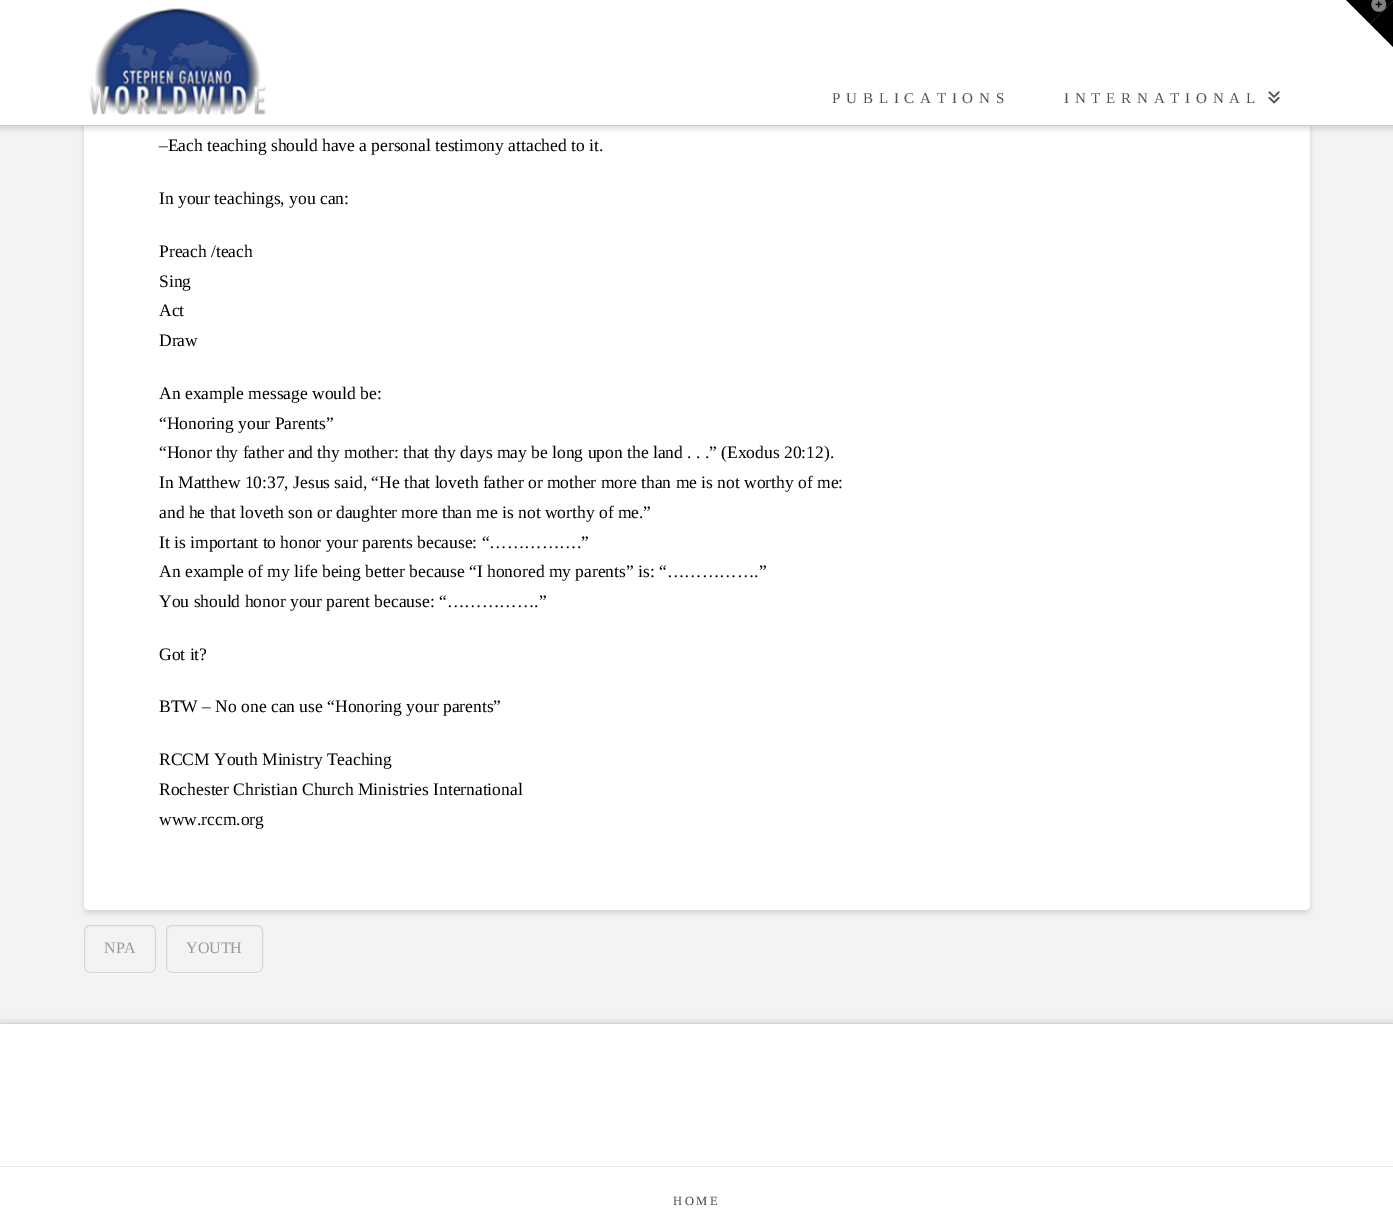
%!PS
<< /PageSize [1393 1225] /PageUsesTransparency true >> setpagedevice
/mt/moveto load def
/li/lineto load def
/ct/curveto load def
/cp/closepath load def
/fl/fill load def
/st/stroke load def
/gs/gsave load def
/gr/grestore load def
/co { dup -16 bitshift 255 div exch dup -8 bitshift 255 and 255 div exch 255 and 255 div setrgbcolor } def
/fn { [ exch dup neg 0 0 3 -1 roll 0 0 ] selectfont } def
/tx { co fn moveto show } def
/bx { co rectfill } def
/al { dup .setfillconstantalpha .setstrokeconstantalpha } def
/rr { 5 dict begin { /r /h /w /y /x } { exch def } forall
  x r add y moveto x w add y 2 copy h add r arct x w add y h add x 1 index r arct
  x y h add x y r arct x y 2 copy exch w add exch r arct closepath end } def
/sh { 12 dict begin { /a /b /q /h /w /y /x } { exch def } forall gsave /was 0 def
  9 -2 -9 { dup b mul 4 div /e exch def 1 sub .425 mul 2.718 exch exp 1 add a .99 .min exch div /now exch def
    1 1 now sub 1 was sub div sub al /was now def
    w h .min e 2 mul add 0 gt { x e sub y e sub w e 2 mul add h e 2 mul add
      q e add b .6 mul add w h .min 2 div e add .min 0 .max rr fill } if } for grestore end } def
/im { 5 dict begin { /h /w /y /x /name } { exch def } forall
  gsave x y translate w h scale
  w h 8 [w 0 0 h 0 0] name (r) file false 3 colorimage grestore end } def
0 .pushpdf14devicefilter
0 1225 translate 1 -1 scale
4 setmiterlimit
0 0 1393 1225 16#F3F3F3 bx
16#000000 co
84 -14 1226 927 5 3 .13 sh
16#FFFFFF co
84 -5 1226 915 5 rr fl
16#000000 co
0 3 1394 126 0 3 .13 sh
0 0 1393 125 16#FFFFFF bx
16#000000 co
1346 0 mt 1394 0 li 1370 24 li cp fl
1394 0 mt 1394 48 li 1370 24 li cp fl
(media/1.raw) 1371 0 16 12 im
0 125 1393 1 16#CCCCCC bx
(media/2.raw) 88 8 178 107 im
(media/3.raw) 1268 91 12 13 im
gs
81 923 mt 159 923 li 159 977 li 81 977 li cp 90 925 mt 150 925 li 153.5 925 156 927.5 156 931 ct 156 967 li 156 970.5 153.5 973 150 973 ct 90 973 li 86.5 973 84 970.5 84 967 ct 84 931 li 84 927.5 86.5 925 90 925 ct cp eoclip newpath
16#FFFFFF co
84 926 72 48 6 .5 .95 sh
gr
0.12 al
16#000000 co
84.5 925.5 71 47 5.5 rr st
gs
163 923 mt 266 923 li 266 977 li 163 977 li cp 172 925 mt 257 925 li 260.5 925 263 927.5 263 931 ct 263 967 li 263 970.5 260.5 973 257 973 ct 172 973 li 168.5 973 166 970.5 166 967 ct 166 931 li 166 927.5 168.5 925 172 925 ct cp eoclip newpath
1 al
16#FFFFFF co
166 926 97 48 6 .5 .95 sh
gr
166.5 925.5 96 47 5.5 rr st
1 al
0 1020 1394 144 0 2 .07 sh
0 1024 1393 142 16#FFFFFF bx
0 1023 1393 1 16#D4D4D4 bx
0 1167 1393 58 16#FFFFFF bx
0 1166 1393 1 16#E9E9E9 bx
/LiberationSerif-Regular 15 fn
16#525252 co
832 103 mt 5.8 0 (PUBLICATIONS) ashow
1064 103 mt 5.8 0 (INTERNATIONAL) ashow
(–Each teaching should have a personal testimony attached to it.) 159 151 /LiberationSerif-Regular 17.5 16#000000 tx
(In your teachings, you can:) 159 204 /LiberationSerif-Regular 17.5 16#000000 tx
(Preach /teach) 159 257 /LiberationSerif-Regular 17.5 16#000000 tx
(Sing) 159 287 /LiberationSerif-Regular 17.5 16#000000 tx
(Act) 159 316 /LiberationSerif-Regular 17.5 16#000000 tx
(Draw) 159 346 /LiberationSerif-Regular 17.5 16#000000 tx
(An example message would be:) 159 399 /LiberationSerif-Regular 17.5 16#000000 tx
(“Honoring your Parents”) 159 429 /LiberationSerif-Regular 17.5 16#000000 tx
(“Honor thy father and thy mother: that thy days may be long upon the land . . .” \(Exodus 20:12\).) 159 458 /LiberationSerif-Regular 17.5 16#000000 tx
(In Matthew 10:37, Jesus said, “He that loveth father or mother more than me is not worthy of me:) 159 488 /LiberationSerif-Regular 17.5 16#000000 tx
(and he that loveth son or daughter more than me is not worthy of me.”) 159 518 /LiberationSerif-Regular 17.5 16#000000 tx
(It is important to honor your parents because: “…………….”) 159 548 /LiberationSerif-Regular 17.5 16#000000 tx
(An example of my life being better because “I honored my parents” is: “…………….”) 159 577 /LiberationSerif-Regular 17.5 16#000000 tx
(You should honor your parent because: “…………….”) 159 607 /LiberationSerif-Regular 17.5 16#000000 tx
(Got it?) 159 660 /LiberationSerif-Regular 17.5 16#000000 tx
(BTW – No one can use “Honoring your parents”) 159 712 /LiberationSerif-Regular 17.5 16#000000 tx
(RCCM Youth Ministry Teaching) 159 765 /LiberationSerif-Regular 17.5 16#000000 tx
(Rochester Christian Church Ministries International) 159 795 /LiberationSerif-Regular 17.5 16#000000 tx
(www.rccm.org) 159 825 /LiberationSerif-Regular 17.5 16#000000 tx
(NPA) 104 953 /LiberationSerif-Regular 16 16#989898 tx
(YOUTH) 186 953 /LiberationSerif-Regular 16 16#989898 tx
/LiberationSerif-Regular 12.5 fn
16#424242 co
673 1205 mt 2.5 0 (HOME) ashow
.poppdf14devicefilter showpage
